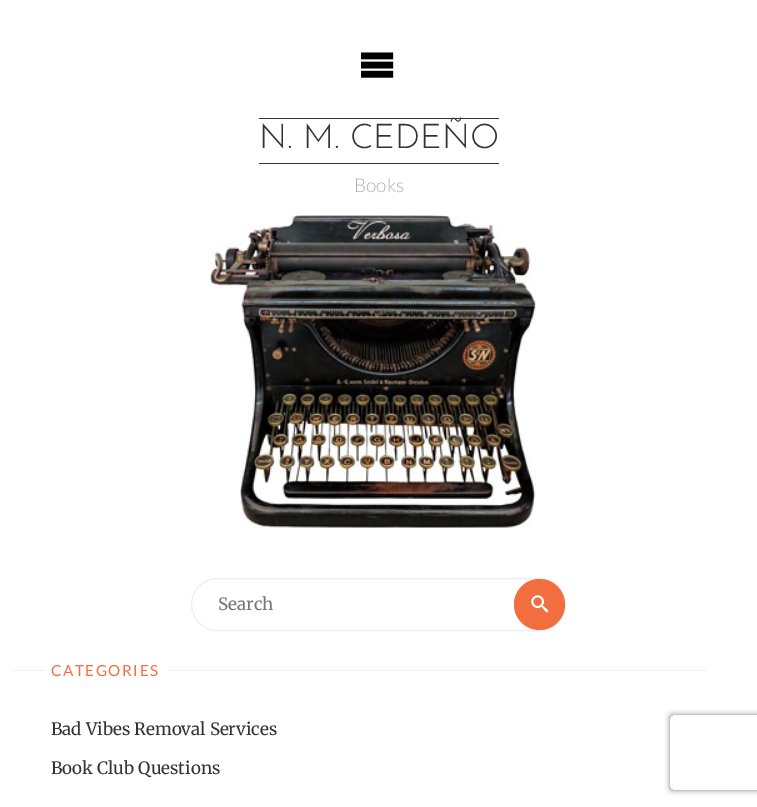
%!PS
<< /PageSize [757 807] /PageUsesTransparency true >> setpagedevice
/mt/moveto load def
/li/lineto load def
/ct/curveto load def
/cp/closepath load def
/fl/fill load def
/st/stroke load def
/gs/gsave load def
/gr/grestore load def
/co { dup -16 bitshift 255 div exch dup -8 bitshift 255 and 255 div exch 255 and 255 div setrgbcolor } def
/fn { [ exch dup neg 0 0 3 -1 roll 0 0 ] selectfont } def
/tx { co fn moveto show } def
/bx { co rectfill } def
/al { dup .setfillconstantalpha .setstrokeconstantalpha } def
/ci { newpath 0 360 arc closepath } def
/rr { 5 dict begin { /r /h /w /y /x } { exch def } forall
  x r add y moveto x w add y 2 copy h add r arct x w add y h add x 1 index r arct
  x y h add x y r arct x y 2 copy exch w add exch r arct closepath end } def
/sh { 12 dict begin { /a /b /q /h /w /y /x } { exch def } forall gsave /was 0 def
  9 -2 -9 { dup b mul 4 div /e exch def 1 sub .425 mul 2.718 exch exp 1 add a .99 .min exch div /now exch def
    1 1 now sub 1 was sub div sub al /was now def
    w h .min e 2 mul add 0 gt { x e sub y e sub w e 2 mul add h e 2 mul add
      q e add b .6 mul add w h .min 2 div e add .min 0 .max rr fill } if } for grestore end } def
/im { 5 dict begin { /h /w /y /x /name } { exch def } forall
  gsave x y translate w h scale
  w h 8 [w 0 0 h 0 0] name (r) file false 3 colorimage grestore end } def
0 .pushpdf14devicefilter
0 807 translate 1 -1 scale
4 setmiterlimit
0 0 757 807 16#FFFFFF bx
(media/1.raw) 361 52 33 26 im
259 118 240 1 16#333333 bx
259 163 240 1 16#333333 bx
(media/2.raw) 210 215 327 313 im
16#EEEEEE co
191.5 578.5 374 52 26 rr st
16#F26E3F co
539.5 604.5 25.5 ci fl
(media/3.raw) 531 595 18 18 im
13 670 693 1 16#EEEEEE bx
44 670 124 1 16#FFFFFF bx
gs
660 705 mt 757 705 li 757 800 li 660 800 li cp 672.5 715 mt 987.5 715 li 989 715 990 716 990 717.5 ct 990 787.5 li 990 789 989 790 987.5 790 ct 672.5 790 li 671 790 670 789 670 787.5 ct 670 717.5 li 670 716 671 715 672.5 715 ct cp eoclip newpath
16#808080 co
670 715 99 75 2.5 3 1 sh
gr
(N. M. CEDEÑO) 259 148 /JosefinSans-Light 34 16#333333 tx
(Books) 354 192 /Lato-Light 19 16#AEAEAE tx
(Search) 218 610 /Merriweather-Regular 17 16#757575 tx
/Lato-Regular 15.25 fn
16#F26E3F co
51 676 mt 1.5 0 (CATEGORIES) ashow
(Bad Vibes Removal Services) 51 735 /Merriweather-Regular 17 16#333333 tx
(Book Club Questions) 51 774 /Merriweather-Regular 17 16#333333 tx
.poppdf14devicefilter showpage
